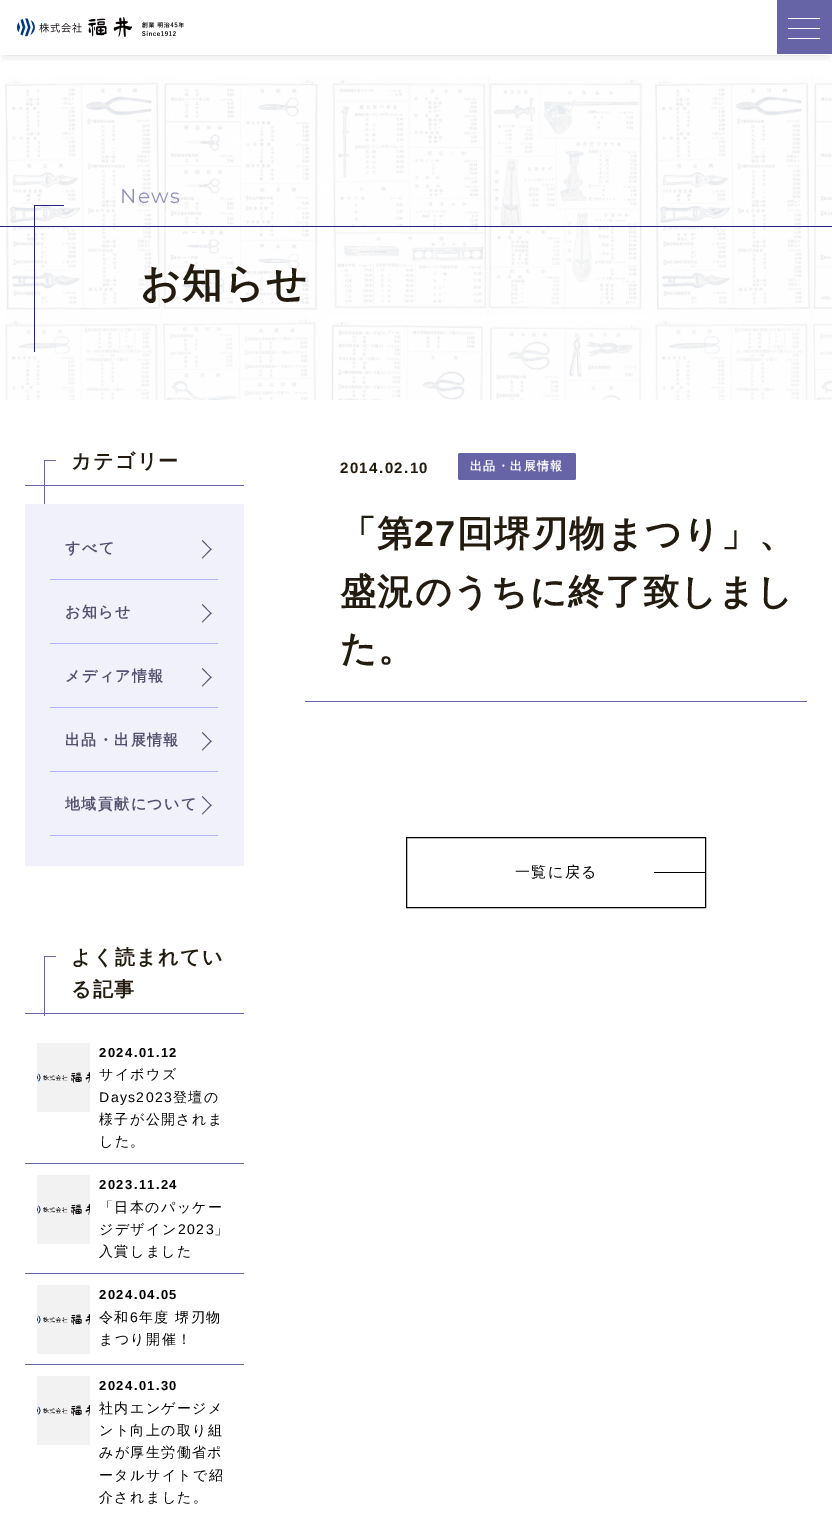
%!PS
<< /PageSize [832 1517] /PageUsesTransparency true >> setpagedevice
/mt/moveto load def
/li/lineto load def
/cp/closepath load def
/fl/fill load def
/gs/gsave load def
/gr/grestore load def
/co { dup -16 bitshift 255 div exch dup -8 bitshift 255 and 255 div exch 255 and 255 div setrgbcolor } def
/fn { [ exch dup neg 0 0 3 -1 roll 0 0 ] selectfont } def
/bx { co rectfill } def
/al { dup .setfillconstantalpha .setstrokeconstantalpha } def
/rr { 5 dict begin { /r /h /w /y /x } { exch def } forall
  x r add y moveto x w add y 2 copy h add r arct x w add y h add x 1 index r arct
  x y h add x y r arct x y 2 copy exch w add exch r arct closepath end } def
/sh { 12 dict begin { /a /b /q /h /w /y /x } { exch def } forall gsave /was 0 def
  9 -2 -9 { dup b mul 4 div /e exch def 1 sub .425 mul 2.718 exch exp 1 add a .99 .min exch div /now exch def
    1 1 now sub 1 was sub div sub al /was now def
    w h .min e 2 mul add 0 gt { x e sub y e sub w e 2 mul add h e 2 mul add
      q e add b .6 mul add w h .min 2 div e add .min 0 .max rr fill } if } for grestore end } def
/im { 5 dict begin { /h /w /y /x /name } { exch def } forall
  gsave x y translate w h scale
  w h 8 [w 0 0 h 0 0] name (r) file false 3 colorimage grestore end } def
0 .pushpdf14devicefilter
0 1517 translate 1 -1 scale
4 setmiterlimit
0 0 832 1517 16#FFFFFF bx
gs
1 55 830 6 rectclip
16#000000 co
6 8 820 43 0 7 .3 sh
gr
(media/1.raw) 17 17 115 20 im
(media/2.raw) 142 22 42 14 im
777 0 55 54 16#6664A7 bx
16#FFFFFF co
788 18 32 1 .5 rr fl
788 28 32 1 .5 rr fl
788 38 32 1 .5 rr fl
(media/3.raw) 5 75 827 325 im
34 205 30 1 16#242082 bx
34 205 1 147 16#242082 bx
0 226 832 1 16#242082 bx
44 460 12 1 16#6664A7 bx
44 460 1 44 16#6664A7 bx
25 485 219 1 16#6664A7 bx
25 504 219 362 16#F1F1FC bx
50 579 168 1 16#B4B4F0 bx
16#53516E co
202.5 540 mt 211.5 549.5 li 211 550 li 202 541 li cp fl
211 548.5 mt 211.5 549.5 li 202.5 558.5 li 202 558 li cp fl
50 643 168 1 16#B4B4F0 bx
16#53516E co
202.5 604 mt 211.5 613.5 li 211 614 li 202 605 li cp fl
211 612.5 mt 211.5 613.5 li 202.5 622.5 li 202 622 li cp fl
50 707 168 1 16#B4B4F0 bx
16#53516E co
202.5 668 mt 211.5 677.5 li 211 678 li 202 669 li cp fl
211 676.5 mt 211.5 677.5 li 202.5 686.5 li 202 686 li cp fl
50 771 168 1 16#B4B4F0 bx
16#53516E co
202.5 732 mt 211.5 741.5 li 211 742 li 202 733 li cp fl
211 740.5 mt 211.5 741.5 li 202.5 750.5 li 202 750 li cp fl
50 835 168 1 16#B4B4F0 bx
16#53516E co
202.5 796 mt 211.5 805.5 li 211 806 li 202 797 li cp fl
211 804.5 mt 211.5 805.5 li 202.5 814.5 li 202 814 li cp fl
44 956 12 1 16#6664A7 bx
44 956 1 60 16#6664A7 bx
25 1013 219 1 16#6664A7 bx
25 1163 219 1 16#6664A7 bx
(media/4.raw) 37 1043 53 69 im
25 1273 219 1 16#6664A7 bx
(media/4.raw) 37 1175 53 69 im
25 1364 219 1 16#6664A7 bx
(media/4.raw) 37 1285 53 69 im
(media/4.raw) 37 1376 53 69 im
305 701 502 1 16#6664A7 bx
458 453 118 27 2 rr fl
16#000000 co
406.5 837.5 299 70 rectstroke
654 872 51 1 16#000000 bx
/Montserrat-Regular 20 fn
16#918FC0 co
120 203 mt 1.4 0 (News) ashow
/WenQuanYiZenHei-Bold 40 fn
16#231B0F co
140 297 mt 1.4 0 (お知らせ) ashow
/WenQuanYiZenHei-Bold 20 fn
71 468 mt 1.4 0 (カテゴリー) ashow
/WenQuanYiZenHei-Bold 15 fn
16#53516E co
65 553 mt 1.4 0 (すべて) ashow
65 617 mt 1.4 0 (お知らせ) ashow
65 681 mt 1.4 0 (メディア情報) ashow
65 745 mt 1.4 0 (出品・出展情報) ashow
65 809 mt 1.4 0 (地域貢献について) ashow
/WenQuanYiZenHei-Bold 20 fn
16#231B0F co
71 964 mt 1.4 0 (よく読まれてい) ashow
71 996 mt 1.4 0 (る記事) ashow
/LiberationSans-Bold 13 fn
16#000000 co
99 1057 mt 1.4 0 (2024.01.12) ashow
/WenQuanYiZenHei-Medium 14 fn
99 1079 mt 1.4 0 (サイボウズ) ashow
/LiberationSans-Regular 14 fn
99 1102 mt 1.4 0 (Days2023) ashow
/WenQuanYiZenHei-Medium 14 fn
173 1102 mt 1.4 0 (登壇の) ashow
99 1124 mt 1.4 0 (様子が公開されま) ashow
99 1146 mt 1.4 0 (した。) ashow
/LiberationSans-Bold 13 fn
99 1189 mt 1.4 0 (2023.11.24) ashow
/WenQuanYiZenHei-Medium 14 fn
99 1212 mt 1.4 0 (「日本のパッケー) ashow
99 1234 mt 1.4 0 (ジデザイン) ashow
/LiberationSans-Regular 14 fn
178 1234 mt 1.4 0 (2023) ashow
/WenQuanYiZenHei-Medium 14 fn
214 1234 mt 1.4 0 (」) ashow
99 1256 mt 1.4 0 (入賞しました) ashow
/LiberationSans-Bold 13 fn
99 1299 mt 1.4 0 (2024.04.05) ashow
/WenQuanYiZenHei-Medium 14 fn
99 1322 mt 1.4 0 (令和) ashow
/LiberationSans-Regular 14 fn
130 1322 mt 1.4 0 (6) ashow
/WenQuanYiZenHei-Medium 14 fn
139 1322 mt 1.4 0 (年度 堺刃物) ashow
99 1344 mt 1.4 0 (まつり開催！) ashow
/LiberationSans-Bold 13 fn
99 1390 mt 1.4 0 (2024.01.30) ashow
/WenQuanYiZenHei-Medium 14 fn
99 1413 mt 1.4 0 (社内エンゲージメ) ashow
99 1435 mt 1.4 0 (ント向上の取り組) ashow
99 1457 mt 1.4 0 (みが厚生労働省ポ) ashow
99 1480 mt 1.4 0 (ータルサイトで紹) ashow
99 1502 mt 1.4 0 (介されました。) ashow
/LiberationSans-Bold 15 fn
16#231B0F co
340 473 mt 1.4 0 (2014.02.10) ashow
/WenQuanYiZenHei-Bold 12 fn
16#FFFFFF co
470 470 mt 1.4 0 (出品・出展情報) ashow
/WenQuanYiZenHei-Bold 36 fn
16#231B0F co
340 546 mt 1.4 0 (「第) ashow
/LiberationSans-Bold 36 fn
414 546 mt 1.4 0 (27) ashow
/WenQuanYiZenHei-Bold 36 fn
457 546 mt 1.4 0 (回堺刃物まつり」、) ashow
340 604 mt 1.4 0 (盛況のうちに終了致しまし) ashow
340 661 mt 1.4 0 (た。) ashow
/WenQuanYiZenHei-Medium 15 fn
16#000000 co
515 877 mt 1.4 0 (一覧に戻る) ashow
.poppdf14devicefilter showpage
